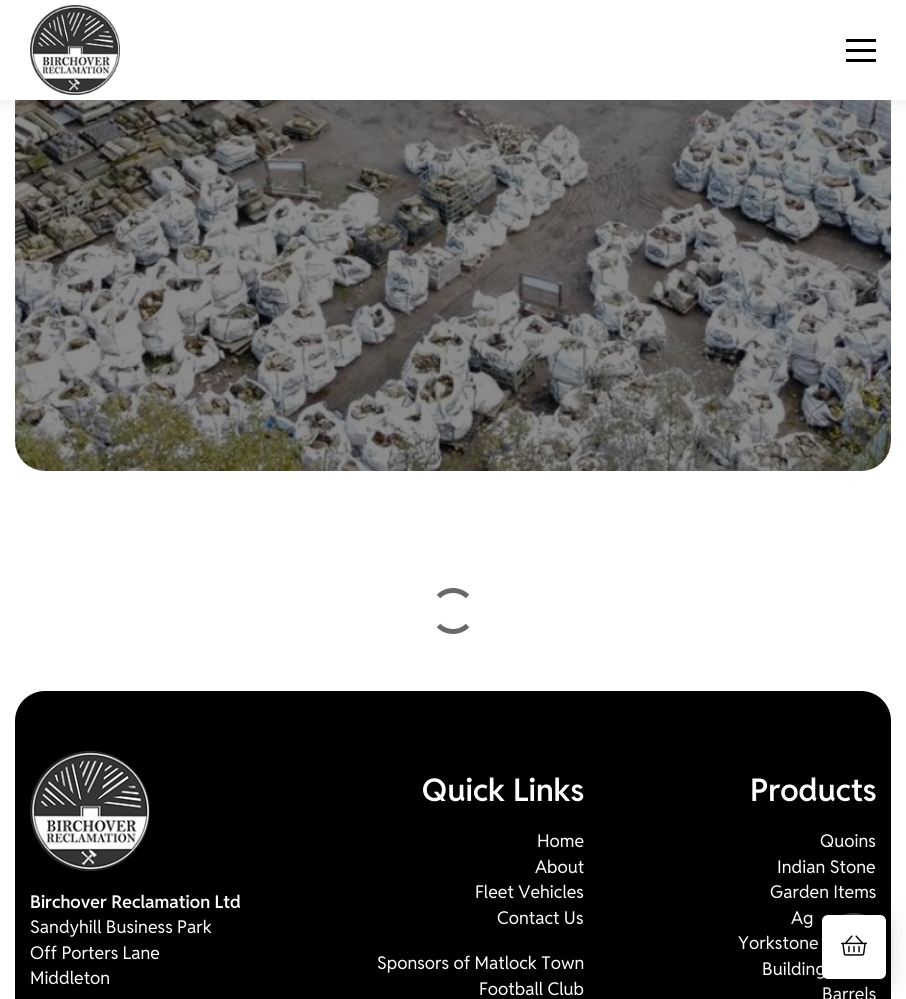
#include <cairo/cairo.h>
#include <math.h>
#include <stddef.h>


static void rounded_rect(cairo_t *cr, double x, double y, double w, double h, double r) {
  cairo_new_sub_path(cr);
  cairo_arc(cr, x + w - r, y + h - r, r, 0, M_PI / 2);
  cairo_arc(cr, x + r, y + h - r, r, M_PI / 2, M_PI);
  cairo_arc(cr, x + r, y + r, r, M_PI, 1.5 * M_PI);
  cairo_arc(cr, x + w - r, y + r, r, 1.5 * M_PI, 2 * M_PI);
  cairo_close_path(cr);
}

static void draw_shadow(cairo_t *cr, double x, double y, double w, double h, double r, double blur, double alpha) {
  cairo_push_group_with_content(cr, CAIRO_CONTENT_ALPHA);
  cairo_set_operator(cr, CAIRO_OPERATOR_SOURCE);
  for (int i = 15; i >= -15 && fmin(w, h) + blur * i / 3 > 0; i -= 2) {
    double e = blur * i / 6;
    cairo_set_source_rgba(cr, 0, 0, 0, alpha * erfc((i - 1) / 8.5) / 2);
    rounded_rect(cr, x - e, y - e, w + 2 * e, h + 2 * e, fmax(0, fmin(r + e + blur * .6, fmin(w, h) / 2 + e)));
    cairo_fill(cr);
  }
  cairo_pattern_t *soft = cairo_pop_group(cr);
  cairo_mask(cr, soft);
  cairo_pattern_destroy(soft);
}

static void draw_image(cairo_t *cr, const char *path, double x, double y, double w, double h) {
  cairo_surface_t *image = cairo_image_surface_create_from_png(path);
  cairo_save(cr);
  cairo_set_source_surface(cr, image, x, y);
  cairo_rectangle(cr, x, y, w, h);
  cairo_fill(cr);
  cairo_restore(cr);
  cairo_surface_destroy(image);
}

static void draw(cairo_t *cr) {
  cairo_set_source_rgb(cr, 1, 1, 1);
  cairo_paint(cr);
  draw_image(cr, "images/2.png", 15, 100, 876, 371);
  cairo_set_source_rgb(cr, 0, 0, 0);
  draw_shadow(cr, 0, 0, 906, 100, 0, 10, 0.1);
  cairo_set_source_rgb(cr, 1, 1, 1);
  cairo_rectangle(cr, 0, 0, 906, 100);
  cairo_fill(cr);
  draw_image(cr, "images/1.png", 30, 5, 90, 90);
  cairo_set_source_rgb(cr, 0, 0, 0);
  cairo_rectangle(cr, 846, 39, 30, 3);
  cairo_fill(cr);
  cairo_rectangle(cr, 846, 49, 30, 3);
  cairo_fill(cr);
  cairo_rectangle(cr, 846, 59, 30, 3);
  cairo_fill(cr);
  cairo_new_path(cr);
  cairo_move_to(cr, 438.5, 596.5);
  cairo_curve_to(cr, 446.5, 588.5, 459.5, 588.5, 467.5, 596.5);
  cairo_move_to(cr, 467.5, 625.5);
  cairo_curve_to(cr, 459.5, 633.5, 446.5, 633.5, 438.5, 625.5);
  cairo_set_source_rgb(cr, 105 / 255.0, 105 / 255.0, 105 / 255.0);
  cairo_set_line_width(cr, 5);
  cairo_stroke(cr);
  cairo_set_source_rgb(cr, 0, 0, 0);
  rounded_rect(cr, 15, 691, 876, 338, 30);
  cairo_fill(cr);
  draw_image(cr, "images/3.png", 30, 751, 120, 120);
  cairo_set_source_rgb(cr, 0, 0, 0);
  draw_shadow(cr, 822, 916, 64, 66, 32, 6, 0.15);
  cairo_select_font_face(cr, "Reddit Sans SemiBold", CAIRO_FONT_SLANT_NORMAL, CAIRO_FONT_WEIGHT_NORMAL);
  cairo_set_font_size(cr, 17.6);
  cairo_set_source_rgb(cr, 1, 1, 1);
  cairo_move_to(cr, 30, 908);
  cairo_show_text(cr, "Birchover Reclamation Ltd");
  cairo_select_font_face(cr, "Reddit Sans", CAIRO_FONT_SLANT_NORMAL, CAIRO_FONT_WEIGHT_NORMAL);
  cairo_move_to(cr, 30, 933);
  cairo_show_text(cr, "Sandyhill Business Park");
  cairo_move_to(cr, 30, 959);
  cairo_show_text(cr, "Off Porters Lane");
  cairo_move_to(cr, 30, 984);
  cairo_show_text(cr, "Middleton");
  cairo_select_font_face(cr, "Reddit Sans SemiBold", CAIRO_FONT_SLANT_NORMAL, CAIRO_FONT_WEIGHT_NORMAL);
  cairo_set_font_size(cr, 31.25);
  cairo_move_to(cr, 422, 801);
  cairo_show_text(cr, "Quick Links");
  cairo_select_font_face(cr, "Reddit Sans", CAIRO_FONT_SLANT_NORMAL, CAIRO_FONT_WEIGHT_NORMAL);
  cairo_set_font_size(cr, 17.6);
  cairo_move_to(cr, 537, 847);
  cairo_show_text(cr, "Home");
  cairo_move_to(cr, 535, 873);
  cairo_show_text(cr, "About");
  cairo_move_to(cr, 475, 898);
  cairo_show_text(cr, "Fleet Vehicles");
  cairo_move_to(cr, 497, 924);
  cairo_show_text(cr, "Contact Us");
  cairo_move_to(cr, 377, 969);
  cairo_show_text(cr, "Sponsors of Matlock Town");
  cairo_move_to(cr, 479, 995);
  cairo_show_text(cr, "Football Club");
  cairo_select_font_face(cr, "Reddit Sans SemiBold", CAIRO_FONT_SLANT_NORMAL, CAIRO_FONT_WEIGHT_NORMAL);
  cairo_set_font_size(cr, 31.25);
  cairo_move_to(cr, 750, 801);
  cairo_show_text(cr, "Products");
  cairo_select_font_face(cr, "Reddit Sans", CAIRO_FONT_SLANT_NORMAL, CAIRO_FONT_WEIGHT_NORMAL);
  cairo_set_font_size(cr, 17.6);
  cairo_move_to(cr, 820, 847);
  cairo_show_text(cr, "Quoins");
  cairo_move_to(cr, 777, 873);
  cairo_show_text(cr, "Indian Stone");
  cairo_move_to(cr, 770, 898);
  cairo_show_text(cr, "Garden Items");
  cairo_move_to(cr, 791, 924);
  cairo_show_text(cr, "Ag");
  cairo_move_to(cr, 738, 949);
  cairo_show_text(cr, "Yorkstone");
  cairo_move_to(cr, 762, 975);
  cairo_show_text(cr, "Building");
  cairo_move_to(cr, 822, 1000);
  cairo_show_text(cr, "Barrels");
  cairo_set_source_rgb(cr, 64 / 255.0, 64 / 255.0, 64 / 255.0);
  rounded_rect(cr, 822, 913, 64, 66, 32);
  cairo_fill(cr);
  cairo_set_source_rgb(cr, 0, 0, 0);
  draw_shadow(cr, 822, 919, 64, 64, 6, 15, 0.17);
  cairo_set_source_rgb(cr, 1, 1, 1);
  rounded_rect(cr, 822, 915, 64, 64, 6);
  cairo_fill(cr);
  draw_image(cr, "images/4.png", 841, 935, 26, 21);
}

int main(void) {
  cairo_surface_t *surface = cairo_image_surface_create(CAIRO_FORMAT_RGB24, 906, 999);
  cairo_t *cr = cairo_create(surface);
  cairo_font_options_t *options = cairo_font_options_create();
  cairo_font_options_set_hint_metrics(options, CAIRO_HINT_METRICS_OFF);
  cairo_font_options_set_hint_style(options, CAIRO_HINT_STYLE_NONE);
  cairo_set_font_options(cr, options);
  cairo_set_miter_limit(cr, 4);
  draw(cr);
  cairo_surface_write_to_png(surface, "out.png");
  cairo_font_options_destroy(options);
  cairo_destroy(cr);
  cairo_surface_destroy(surface);
  return 0;
}
